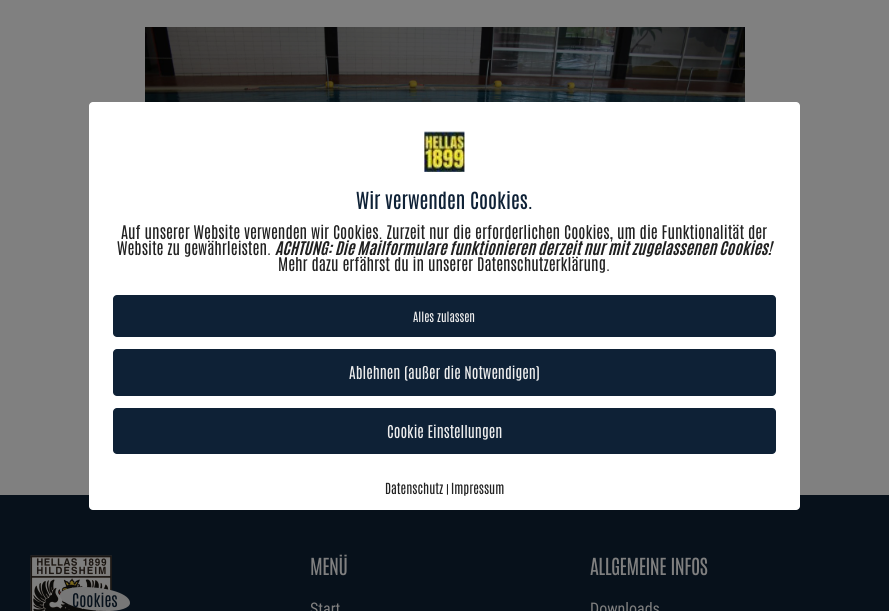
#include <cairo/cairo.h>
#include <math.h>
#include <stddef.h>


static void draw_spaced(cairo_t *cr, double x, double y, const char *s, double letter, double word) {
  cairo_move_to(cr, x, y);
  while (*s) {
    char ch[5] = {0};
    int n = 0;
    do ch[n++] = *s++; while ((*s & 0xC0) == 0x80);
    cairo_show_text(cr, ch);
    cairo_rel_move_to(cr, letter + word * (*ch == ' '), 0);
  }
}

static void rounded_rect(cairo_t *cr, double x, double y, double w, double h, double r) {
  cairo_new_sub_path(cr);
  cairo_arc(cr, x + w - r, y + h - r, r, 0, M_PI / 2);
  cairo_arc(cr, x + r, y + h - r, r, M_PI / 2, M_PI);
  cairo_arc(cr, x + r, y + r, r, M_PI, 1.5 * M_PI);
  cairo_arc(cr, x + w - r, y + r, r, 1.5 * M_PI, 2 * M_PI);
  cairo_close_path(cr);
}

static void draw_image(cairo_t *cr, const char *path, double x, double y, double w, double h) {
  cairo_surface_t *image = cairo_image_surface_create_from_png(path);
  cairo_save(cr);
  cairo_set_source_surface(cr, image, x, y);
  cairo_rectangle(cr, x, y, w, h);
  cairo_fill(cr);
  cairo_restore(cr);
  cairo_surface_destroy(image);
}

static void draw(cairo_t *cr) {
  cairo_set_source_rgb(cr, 128 / 255.0, 128 / 255.0, 128 / 255.0);
  cairo_paint(cr);
  draw_image(cr, "images/1.png", 145, 27, 600, 75);
  cairo_set_source_rgb(cr, 7 / 255.0, 17 / 255.0, 27 / 255.0);
  cairo_rectangle(cr, 0, 495, 889, 116);
  cairo_fill(cr);
  cairo_set_source_rgb(cr, 1, 1, 1);
  rounded_rect(cr, 89, 102, 711, 408, 4);
  cairo_fill(cr);
  draw_image(cr, "images/2.png", 424, 131, 41, 41);
  cairo_set_source_rgb(cr, 14 / 255.0, 33 / 255.0, 54 / 255.0);
  rounded_rect(cr, 113, 295, 663, 42, 4);
  cairo_fill(cr);
  rounded_rect(cr, 113, 349, 663, 47, 4);
  cairo_fill(cr);
  rounded_rect(cr, 113, 408, 663, 46, 4);
  cairo_fill(cr);
  draw_image(cr, "images/3.png", 30, 555, 82, 56);
  cairo_set_source_rgb(cr, 119 / 255.0, 119 / 255.0, 119 / 255.0);
  cairo_new_path(cr);
  cairo_move_to(cr, 82, 587);
  cairo_curve_to(cr, 109, 587, 130, 594, 130, 603);
  cairo_curve_to(cr, 130, 608, 120, 611, 108, 611);
  cairo_curve_to(cr, 81, 611, 60, 604, 60, 595);
  cairo_curve_to(cr, 60, 590, 70, 587, 82, 587);
  cairo_close_path(cr);
  cairo_fill(cr);
  cairo_select_font_face(cr, "Antonio Medium", CAIRO_FONT_SLANT_NORMAL, CAIRO_FONT_WEIGHT_NORMAL);
  cairo_set_font_size(cr, 20);
  cairo_set_source_rgb(cr, 14 / 255.0, 33 / 255.0, 54 / 255.0);
  cairo_move_to(cr, 356, 209);
  cairo_show_text(cr, "Wir verwenden Cookies.");
  cairo_select_font_face(cr, "Antonio", CAIRO_FONT_SLANT_NORMAL, CAIRO_FONT_WEIGHT_NORMAL);
  cairo_set_font_size(cr, 16);
  cairo_set_source_rgb(cr, 33 / 255.0, 33 / 255.0, 33 / 255.0);
  cairo_move_to(cr, 121, 239);
  cairo_show_text(cr, "Auf unserer Website verwenden wir Cookies. Zurzeit nur die erforderlichen Cookies, um die Funktionalität der");
  cairo_move_to(cr, 117, 255);
  cairo_show_text(cr, "Website zu gewährleisten.");
  cairo_select_font_face(cr, "Antonio", CAIRO_FONT_SLANT_ITALIC, CAIRO_FONT_WEIGHT_BOLD);
  cairo_move_to(cr, 275, 255);
  cairo_show_text(cr, "ACHTUNG: Die Mailformulare funktionieren derzeit nur mit zugelassenen Cookies!");
  cairo_select_font_face(cr, "Antonio", CAIRO_FONT_SLANT_NORMAL, CAIRO_FONT_WEIGHT_NORMAL);
  cairo_move_to(cr, 278, 271);
  cairo_show_text(cr, "Mehr dazu erfährst du in unserer Datenschutzerklärung.");
  cairo_set_font_size(cr, 12);
  cairo_set_source_rgb(cr, 238 / 255.0, 238 / 255.0, 238 / 255.0);
  cairo_move_to(cr, 413, 322);
  cairo_show_text(cr, "Alles zulassen");
  cairo_set_font_size(cr, 15);
  cairo_move_to(cr, 349, 379);
  cairo_show_text(cr, "Ablehnen (außer die Notwendigen)");
  cairo_move_to(cr, 387, 438);
  cairo_show_text(cr, "Cookie Einstellungen");
  cairo_set_font_size(cr, 13);
  cairo_set_source_rgb(cr, 33 / 255.0, 33 / 255.0, 33 / 255.0);
  cairo_move_to(cr, 385, 494);
  cairo_show_text(cr, "Datenschutz");
  cairo_set_font_size(cr, 11);
  cairo_move_to(cr, 446, 494);
  cairo_show_text(cr, "|");
  cairo_set_font_size(cr, 13);
  cairo_move_to(cr, 451, 494);
  cairo_show_text(cr, "Impressum");
  cairo_set_font_size(cr, 16);
  cairo_set_source_rgb(cr, 7 / 255.0, 17 / 255.0, 27 / 255.0);
  cairo_move_to(cr, 72, 607);
  cairo_show_text(cr, "Cookies");
  cairo_set_font_size(cr, 20);
  cairo_set_source_rgb(cr, 128 / 255.0, 128 / 255.0, 128 / 255.0);
  draw_spaced(cr, 310, 575, "MENÜ", -0.5, 0);
  cairo_select_font_face(cr, "Roboto Condensed", CAIRO_FONT_SLANT_NORMAL, CAIRO_FONT_WEIGHT_NORMAL);
  cairo_set_font_size(cr, 16);
  cairo_move_to(cr, 310, 614);
  cairo_show_text(cr, "Start");
  cairo_select_font_face(cr, "Antonio", CAIRO_FONT_SLANT_NORMAL, CAIRO_FONT_WEIGHT_NORMAL);
  cairo_set_font_size(cr, 20);
  draw_spaced(cr, 590, 575, "ALLGEMEINE INFOS", -0.5, 0);
  cairo_select_font_face(cr, "Roboto Condensed", CAIRO_FONT_SLANT_NORMAL, CAIRO_FONT_WEIGHT_NORMAL);
  cairo_set_font_size(cr, 16);
  cairo_move_to(cr, 590, 614);
  cairo_show_text(cr, "Downloads");
}

int main(void) {
  cairo_surface_t *surface = cairo_image_surface_create(CAIRO_FORMAT_RGB24, 889, 611);
  cairo_t *cr = cairo_create(surface);
  cairo_font_options_t *options = cairo_font_options_create();
  cairo_font_options_set_hint_metrics(options, CAIRO_HINT_METRICS_OFF);
  cairo_font_options_set_hint_style(options, CAIRO_HINT_STYLE_NONE);
  cairo_set_font_options(cr, options);
  cairo_set_miter_limit(cr, 4);
  draw(cr);
  cairo_surface_write_to_png(surface, "out.png");
  cairo_font_options_destroy(options);
  cairo_destroy(cr);
  cairo_surface_destroy(surface);
  return 0;
}
